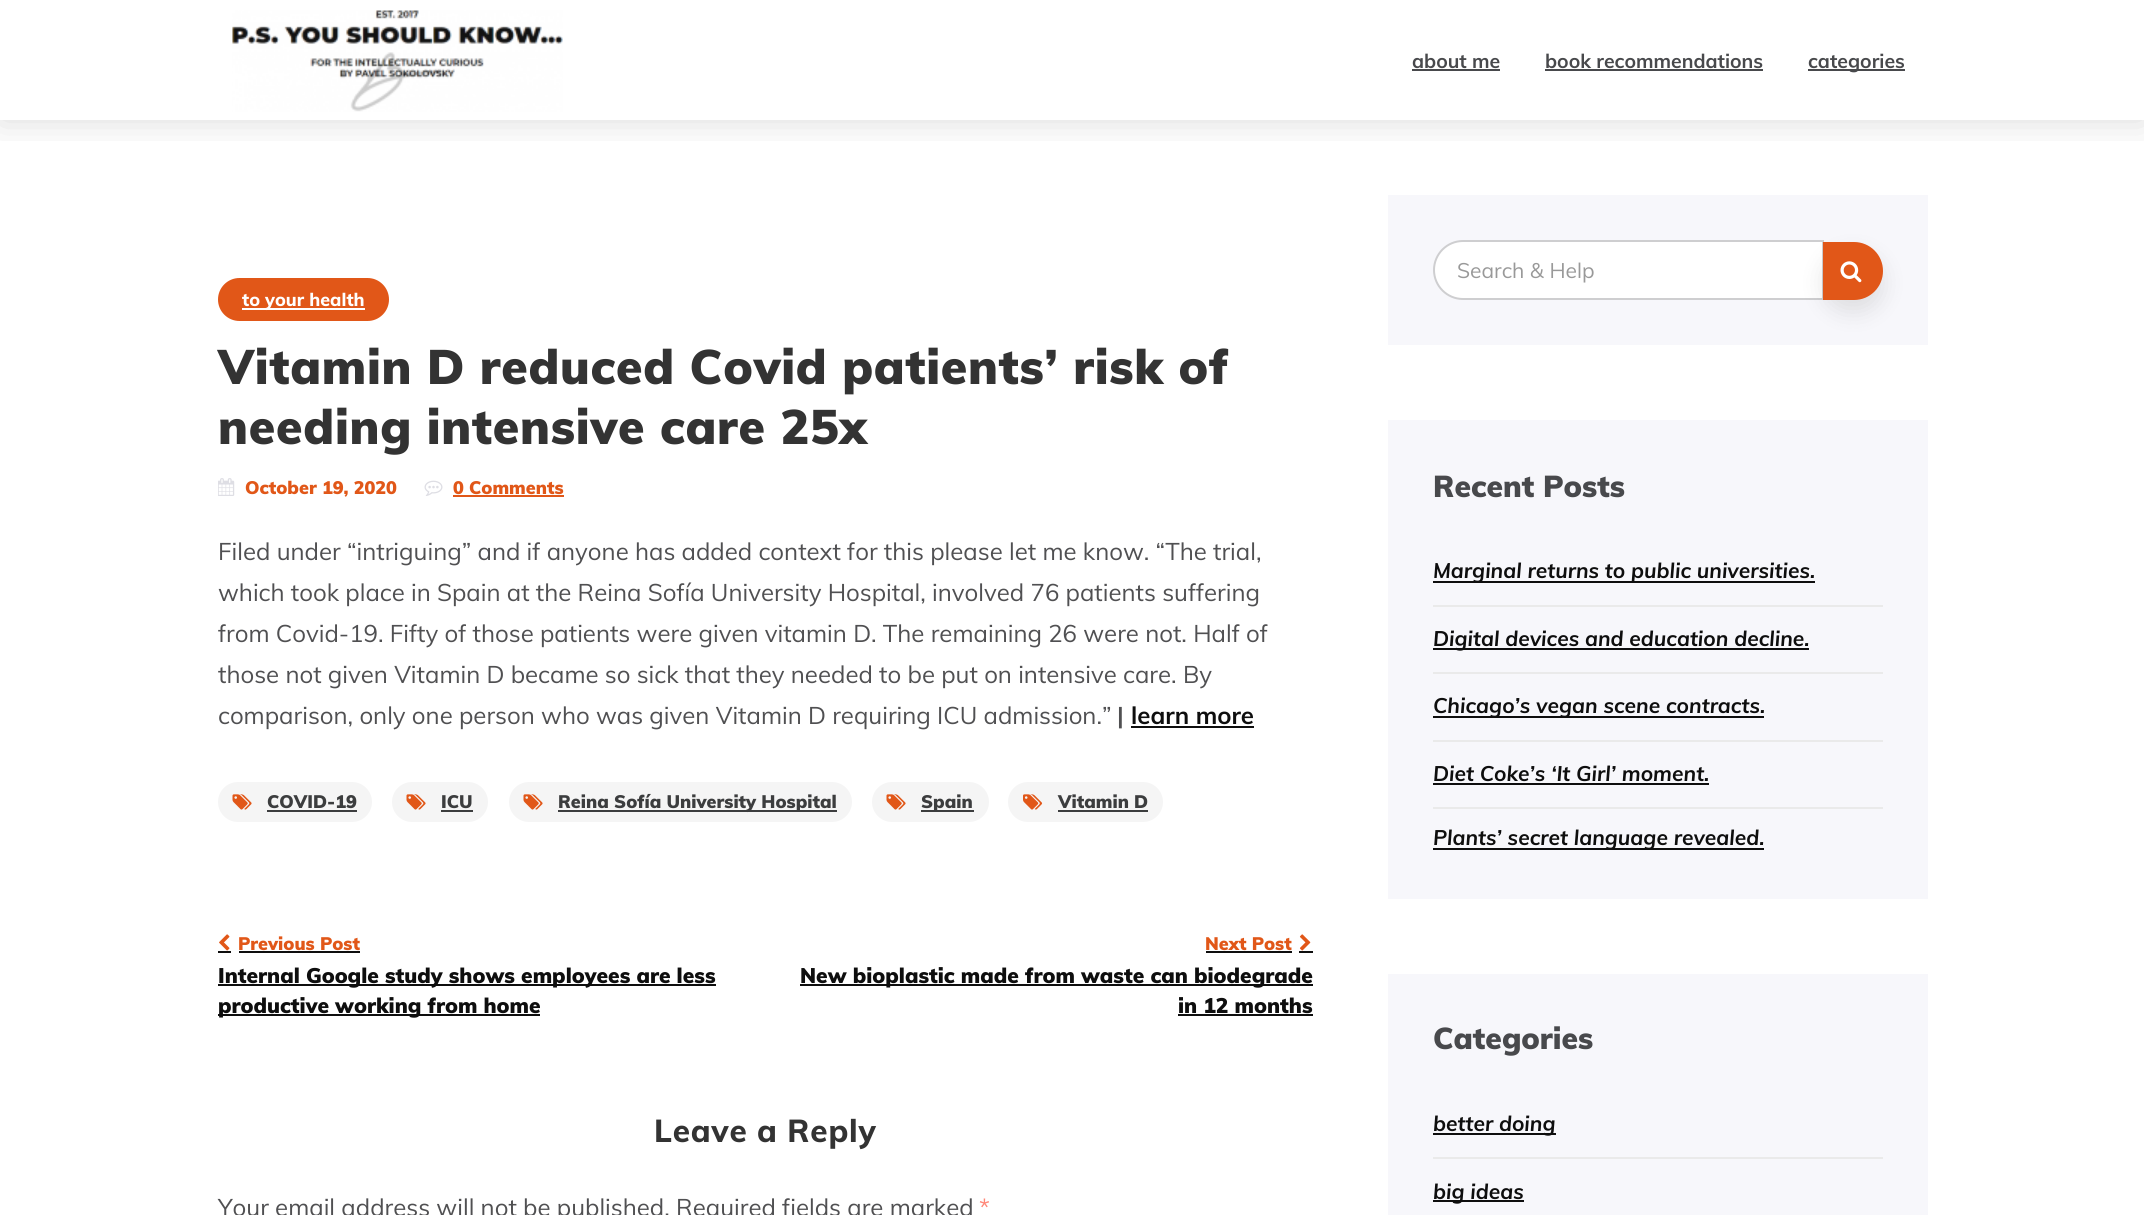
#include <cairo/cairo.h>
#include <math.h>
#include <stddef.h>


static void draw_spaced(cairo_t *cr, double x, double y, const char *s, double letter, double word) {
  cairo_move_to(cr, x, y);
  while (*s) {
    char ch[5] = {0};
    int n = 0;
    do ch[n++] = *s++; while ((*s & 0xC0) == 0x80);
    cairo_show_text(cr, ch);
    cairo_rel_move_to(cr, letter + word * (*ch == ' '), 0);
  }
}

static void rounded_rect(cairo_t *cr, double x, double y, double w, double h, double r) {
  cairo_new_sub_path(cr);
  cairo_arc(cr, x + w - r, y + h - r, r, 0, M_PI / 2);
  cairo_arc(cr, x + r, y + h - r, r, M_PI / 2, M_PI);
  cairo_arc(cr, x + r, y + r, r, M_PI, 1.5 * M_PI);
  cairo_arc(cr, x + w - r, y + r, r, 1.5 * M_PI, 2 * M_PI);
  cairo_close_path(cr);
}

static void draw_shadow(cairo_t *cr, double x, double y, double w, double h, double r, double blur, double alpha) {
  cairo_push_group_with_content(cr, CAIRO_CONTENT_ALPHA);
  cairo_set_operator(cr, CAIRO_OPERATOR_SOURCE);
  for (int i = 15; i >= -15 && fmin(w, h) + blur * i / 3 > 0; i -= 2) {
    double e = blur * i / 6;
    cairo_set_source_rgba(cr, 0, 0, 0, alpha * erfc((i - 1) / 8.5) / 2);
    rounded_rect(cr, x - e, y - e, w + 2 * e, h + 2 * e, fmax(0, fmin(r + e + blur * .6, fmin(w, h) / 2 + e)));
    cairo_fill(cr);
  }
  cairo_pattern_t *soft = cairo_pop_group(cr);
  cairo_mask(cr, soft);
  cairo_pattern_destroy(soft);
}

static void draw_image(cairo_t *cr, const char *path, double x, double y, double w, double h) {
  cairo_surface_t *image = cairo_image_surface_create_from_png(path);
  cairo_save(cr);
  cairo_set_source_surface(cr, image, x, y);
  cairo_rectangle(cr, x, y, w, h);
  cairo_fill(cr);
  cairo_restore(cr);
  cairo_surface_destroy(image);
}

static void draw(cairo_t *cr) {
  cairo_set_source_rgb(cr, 1, 1, 1);
  cairo_paint(cr);
  cairo_save(cr);
  cairo_rectangle(cr, 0, 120, 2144, 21);
  cairo_clip(cr);
  cairo_set_source_rgb(cr, 0, 0, 0);
  draw_shadow(cr, 0, 0, 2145, 120, 0, 19, 0.15);
  cairo_restore(cr);
  draw_image(cr, "images/1.png", 232, 10, 331, 102);
  cairo_set_source_rgb(cr, 72 / 255.0, 73 / 255.0, 76 / 255.0);
  cairo_rectangle(cr, 1412, 69, 88, 2);
  cairo_fill(cr);
  cairo_rectangle(cr, 1545, 69, 218, 2);
  cairo_fill(cr);
  cairo_rectangle(cr, 1808, 69, 97, 2);
  cairo_fill(cr);
  cairo_set_source_rgb(cr, 225 / 255.0, 87 / 255.0, 24 / 255.0);
  rounded_rect(cr, 219, 279, 169, 41, 20.5);
  cairo_fill_preserve(cr);
  cairo_stroke(cr);
  cairo_set_source_rgb(cr, 1, 1, 1);
  cairo_rectangle(cr, 242, 308, 123, 2);
  cairo_fill(cr);
  draw_image(cr, "images/2.png", 218, 478, 17, 18);
  draw_image(cr, "images/3.png", 424, 480, 19, 16);
  cairo_set_source_rgb(cr, 225 / 255.0, 87 / 255.0, 24 / 255.0);
  cairo_rectangle(cr, 453, 495, 111, 2);
  cairo_fill(cr);
  cairo_set_source_rgb(cr, 14 / 255.0, 14 / 255.0, 14 / 255.0);
  cairo_rectangle(cr, 1131, 726, 123, 2);
  cairo_fill(cr);
  cairo_set_source_rgb(cr, 245 / 255.0, 245 / 255.0, 245 / 255.0);
  rounded_rect(cr, 218, 782, 154, 40, 20);
  cairo_fill(cr);
  draw_image(cr, "images/4.png", 232, 794, 20, 16);
  cairo_set_source_rgb(cr, 60 / 255.0, 61 / 255.0, 62 / 255.0);
  cairo_rectangle(cr, 267, 810, 90, 2);
  cairo_fill(cr);
  cairo_set_source_rgb(cr, 245 / 255.0, 245 / 255.0, 245 / 255.0);
  rounded_rect(cr, 392, 782, 96, 40, 20);
  cairo_fill(cr);
  draw_image(cr, "images/4.png", 406, 794, 20, 16);
  cairo_set_source_rgb(cr, 60 / 255.0, 61 / 255.0, 62 / 255.0);
  cairo_rectangle(cr, 441, 810, 32, 2);
  cairo_fill(cr);
  cairo_set_source_rgb(cr, 245 / 255.0, 245 / 255.0, 245 / 255.0);
  rounded_rect(cr, 509, 782, 343, 40, 20);
  cairo_fill(cr);
  draw_image(cr, "images/4.png", 523, 794, 20, 16);
  cairo_set_source_rgb(cr, 60 / 255.0, 61 / 255.0, 62 / 255.0);
  cairo_rectangle(cr, 558, 810, 279, 2);
  cairo_fill(cr);
  cairo_set_source_rgb(cr, 245 / 255.0, 245 / 255.0, 245 / 255.0);
  rounded_rect(cr, 872, 782, 117, 40, 20);
  cairo_fill(cr);
  draw_image(cr, "images/4.png", 886, 794, 20, 16);
  cairo_set_source_rgb(cr, 60 / 255.0, 61 / 255.0, 62 / 255.0);
  cairo_rectangle(cr, 921, 810, 53, 2);
  cairo_fill(cr);
  cairo_set_source_rgb(cr, 245 / 255.0, 245 / 255.0, 245 / 255.0);
  rounded_rect(cr, 1008, 782, 155, 40, 20);
  cairo_fill(cr);
  draw_image(cr, "images/5.png", 1023, 794, 20, 16);
  cairo_set_source_rgb(cr, 60 / 255.0, 61 / 255.0, 62 / 255.0);
  cairo_rectangle(cr, 1058, 810, 90, 2);
  cairo_fill(cr);
  draw_image(cr, "images/6.png", 219, 934, 11, 17);
  cairo_set_source_rgb(cr, 14 / 255.0, 14 / 255.0, 14 / 255.0);
  cairo_rectangle(cr, 239, 951, 121, 2);
  cairo_fill(cr);
  cairo_rectangle(cr, 218, 951, 13, 2);
  cairo_fill(cr);
  cairo_rectangle(cr, 218, 984, 498, 2);
  cairo_fill(cr);
  cairo_rectangle(cr, 218, 1014, 322, 2);
  cairo_fill(cr);
  cairo_rectangle(cr, 1206, 951, 86, 2);
  cairo_fill(cr);
  draw_image(cr, "images/7.png", 1299, 934, 12, 17);
  cairo_rectangle(cr, 1299, 951, 14, 2);
  cairo_fill(cr);
  cairo_rectangle(cr, 800, 984, 513, 2);
  cairo_fill(cr);
  cairo_rectangle(cr, 1178, 1014, 135, 2);
  cairo_fill(cr);
  cairo_set_source_rgb(cr, 247 / 255.0, 247 / 255.0, 251 / 255.0);
  cairo_rectangle(cr, 1388, 195, 540, 150);
  cairo_fill(cr);
  cairo_set_source_rgb(cr, 1, 1, 1);
  cairo_new_path(cr);
  cairo_move_to(cr, 1463, 241);
  cairo_line_to(cr, 1823, 241);
  cairo_line_to(cr, 1823, 299);
  cairo_line_to(cr, 1463, 299);
  cairo_curve_to(cr, 1447, 299, 1434, 286, 1434, 270);
  cairo_curve_to(cr, 1434, 254, 1447, 241, 1463, 241);
  cairo_close_path(cr);
  cairo_fill_preserve(cr);
  cairo_set_source_rgb(cr, 206 / 255.0, 206 / 255.0, 208 / 255.0);
  cairo_stroke(cr);
  cairo_set_source_rgb(cr, 0, 0, 0);
  draw_shadow(cr, 1823, 254, 60, 58, 29, 11, 0.1);
  cairo_set_source_rgb(cr, 225 / 255.0, 87 / 255.0, 24 / 255.0);
  cairo_new_path(cr);
  cairo_move_to(cr, 1824, 243);
  cairo_line_to(cr, 1854, 243);
  cairo_curve_to(cr, 1869.5, 243, 1882, 255.5, 1882, 271);
  cairo_curve_to(cr, 1882, 286.5, 1869.5, 299, 1854, 299);
  cairo_line_to(cr, 1824, 299);
  cairo_close_path(cr);
  cairo_fill_preserve(cr);
  cairo_stroke(cr);
  draw_image(cr, "images/8.png", 1840, 261, 22, 22);
  cairo_set_source_rgb(cr, 247 / 255.0, 247 / 255.0, 251 / 255.0);
  cairo_rectangle(cr, 1388, 420, 540, 479);
  cairo_fill(cr);
  cairo_set_source_rgb(cr, 234 / 255.0, 234 / 255.0, 234 / 255.0);
  cairo_rectangle(cr, 1433, 605, 450, 2);
  cairo_fill(cr);
  cairo_set_source_rgb(cr, 14 / 255.0, 14 / 255.0, 14 / 255.0);
  cairo_rectangle(cr, 1433, 581, 382, 2);
  cairo_fill(cr);
  cairo_set_source_rgb(cr, 234 / 255.0, 234 / 255.0, 234 / 255.0);
  cairo_rectangle(cr, 1433, 672, 450, 2);
  cairo_fill(cr);
  cairo_set_source_rgb(cr, 14 / 255.0, 14 / 255.0, 14 / 255.0);
  cairo_rectangle(cr, 1433, 648, 376, 2);
  cairo_fill(cr);
  cairo_set_source_rgb(cr, 234 / 255.0, 234 / 255.0, 234 / 255.0);
  cairo_rectangle(cr, 1433, 740, 450, 2);
  cairo_fill(cr);
  cairo_set_source_rgb(cr, 14 / 255.0, 14 / 255.0, 14 / 255.0);
  cairo_rectangle(cr, 1433, 716, 331, 2);
  cairo_fill(cr);
  cairo_set_source_rgb(cr, 234 / 255.0, 234 / 255.0, 234 / 255.0);
  cairo_rectangle(cr, 1433, 807, 450, 2);
  cairo_fill(cr);
  cairo_set_source_rgb(cr, 14 / 255.0, 14 / 255.0, 14 / 255.0);
  cairo_rectangle(cr, 1433, 783, 276, 2);
  cairo_fill(cr);
  cairo_rectangle(cr, 1433, 848, 331, 2);
  cairo_fill(cr);
  cairo_set_source_rgb(cr, 247 / 255.0, 247 / 255.0, 251 / 255.0);
  cairo_rectangle(cr, 1388, 974, 540, 241);
  cairo_fill(cr);
  cairo_set_source_rgb(cr, 234 / 255.0, 234 / 255.0, 234 / 255.0);
  cairo_rectangle(cr, 1433, 1157, 450, 2);
  cairo_fill(cr);
  cairo_set_source_rgb(cr, 14 / 255.0, 14 / 255.0, 14 / 255.0);
  cairo_rectangle(cr, 1433, 1133, 123, 2);
  cairo_fill(cr);
  cairo_rectangle(cr, 1433, 1200, 91, 2);
  cairo_fill(cr);
  cairo_select_font_face(cr, "Muli", CAIRO_FONT_SLANT_NORMAL, CAIRO_FONT_WEIGHT_BOLD);
  cairo_set_font_size(cr, 19.5);
  cairo_set_source_rgb(cr, 72 / 255.0, 73 / 255.0, 76 / 255.0);
  cairo_move_to(cr, 1412, 68);
  cairo_show_text(cr, "about me");
  cairo_move_to(cr, 1545, 68);
  cairo_show_text(cr, "book recommendations");
  cairo_move_to(cr, 1808, 68);
  cairo_show_text(cr, "categories");
  cairo_select_font_face(cr, "Muli ExtraBold", CAIRO_FONT_SLANT_NORMAL, CAIRO_FONT_WEIGHT_NORMAL);
  cairo_set_font_size(cr, 18);
  cairo_set_source_rgb(cr, 1, 1, 1);
  cairo_move_to(cr, 242, 306);
  cairo_show_text(cr, "to your health");
  cairo_select_font_face(cr, "Muli Black", CAIRO_FONT_SLANT_NORMAL, CAIRO_FONT_WEIGHT_NORMAL);
  cairo_set_font_size(cr, 48);
  cairo_set_source_rgb(cr, 51 / 255.0, 51 / 255.0, 51 / 255.0);
  draw_spaced(cr, 218, 384, "Vitamin D reduced Covid patients’ risk of", 0.75, 0);
  draw_spaced(cr, 218, 444, "needing intensive care 25x", 0.75, 0);
  cairo_set_font_size(cr, 18);
  cairo_set_source_rgb(cr, 225 / 255.0, 87 / 255.0, 24 / 255.0);
  cairo_move_to(cr, 245, 494);
  cairo_show_text(cr, "October 19, 2020");
  cairo_move_to(cr, 453, 494);
  cairo_show_text(cr, "0 Comments");
  cairo_select_font_face(cr, "Muli", CAIRO_FONT_SLANT_NORMAL, CAIRO_FONT_WEIGHT_NORMAL);
  cairo_set_font_size(cr, 24);
  cairo_set_source_rgb(cr, 80 / 255.0, 80 / 255.0, 82 / 255.0);
  cairo_move_to(cr, 218, 560);
  cairo_show_text(cr, "Filed under “intriguing” and if anyone has added context for this please let me know. “The trial,");
  cairo_move_to(cr, 218, 601);
  cairo_show_text(cr, "which took place in Spain at the Reina Sofía University Hospital, involved 76 patients suffering");
  cairo_move_to(cr, 218, 642);
  cairo_show_text(cr, "from Covid-19. Fifty of those patients were given vitamin D. The remaining 26 were not. Half of");
  cairo_move_to(cr, 218, 683);
  cairo_show_text(cr, "those not given Vitamin D became so sick that they needed to be put on intensive care. By");
  cairo_move_to(cr, 218, 724);
  cairo_show_text(cr, "comparison, only one person who was given Vitamin D requiring ICU admission.”");
  cairo_select_font_face(cr, "Muli", CAIRO_FONT_SLANT_NORMAL, CAIRO_FONT_WEIGHT_BOLD);
  cairo_move_to(cr, 1117, 724);
  cairo_show_text(cr, "|");
  cairo_set_source_rgb(cr, 14 / 255.0, 14 / 255.0, 14 / 255.0);
  cairo_move_to(cr, 1131, 724);
  cairo_show_text(cr, "learn more");
  cairo_select_font_face(cr, "Muli Black", CAIRO_FONT_SLANT_NORMAL, CAIRO_FONT_WEIGHT_NORMAL);
  cairo_set_font_size(cr, 18);
  cairo_set_source_rgb(cr, 60 / 255.0, 61 / 255.0, 62 / 255.0);
  cairo_move_to(cr, 267, 808);
  cairo_show_text(cr, "COVID-19");
  cairo_move_to(cr, 441, 808);
  cairo_show_text(cr, "ICU");
  cairo_move_to(cr, 558, 808);
  cairo_show_text(cr, "Reina Sofía University Hospital");
  cairo_move_to(cr, 921, 808);
  cairo_show_text(cr, "Spain");
  cairo_move_to(cr, 1058, 808);
  cairo_show_text(cr, "Vitamin D");
  cairo_set_source_rgb(cr, 225 / 255.0, 87 / 255.0, 24 / 255.0);
  cairo_move_to(cr, 238, 950);
  cairo_show_text(cr, "Previous Post");
  cairo_set_font_size(cr, 21);
  cairo_set_source_rgb(cr, 14 / 255.0, 14 / 255.0, 14 / 255.0);
  cairo_move_to(cr, 218, 983);
  cairo_show_text(cr, "Internal Google study shows employees are less");
  cairo_move_to(cr, 218, 1013);
  cairo_show_text(cr, "productive working from home");
  cairo_set_font_size(cr, 18);
  cairo_set_source_rgb(cr, 225 / 255.0, 87 / 255.0, 24 / 255.0);
  cairo_move_to(cr, 1205, 950);
  cairo_show_text(cr, "Next Post");
  cairo_set_font_size(cr, 21);
  cairo_set_source_rgb(cr, 14 / 255.0, 14 / 255.0, 14 / 255.0);
  cairo_move_to(cr, 800, 983);
  cairo_show_text(cr, "New bioplastic made from waste can biodegrade");
  cairo_move_to(cr, 1178, 1013);
  cairo_show_text(cr, "in 12 months");
  cairo_select_font_face(cr, "Muli ExtraBold", CAIRO_FONT_SLANT_NORMAL, CAIRO_FONT_WEIGHT_NORMAL);
  cairo_set_font_size(cr, 31.5);
  cairo_set_source_rgb(cr, 51 / 255.0, 51 / 255.0, 51 / 255.0);
  draw_spaced(cr, 654, 1142, "Leave a Reply", 0.75, 0);
  cairo_select_font_face(cr, "Muli", CAIRO_FONT_SLANT_NORMAL, CAIRO_FONT_WEIGHT_NORMAL);
  cairo_set_font_size(cr, 24);
  cairo_set_source_rgb(cr, 80 / 255.0, 80 / 255.0, 82 / 255.0);
  cairo_move_to(cr, 218, 1216);
  cairo_show_text(cr, "Your email address will not be published. Required fields are marked");
  cairo_set_source_rgb(cr, 1, 135 / 255.0, 120 / 255.0);
  cairo_move_to(cr, 979, 1216);
  cairo_show_text(cr, "*");
  cairo_set_font_size(cr, 21);
  cairo_set_source_rgb(cr, 153 / 255.0, 153 / 255.0, 153 / 255.0);
  cairo_move_to(cr, 1457, 278);
  cairo_show_text(cr, "Search & Help");
  cairo_select_font_face(cr, "Muli Black", CAIRO_FONT_SLANT_NORMAL, CAIRO_FONT_WEIGHT_NORMAL);
  cairo_set_font_size(cr, 30);
  cairo_set_source_rgb(cr, 72 / 255.0, 73 / 255.0, 76 / 255.0);
  cairo_move_to(cr, 1433, 497);
  cairo_show_text(cr, "Recent Posts");
  cairo_select_font_face(cr, "Muli", CAIRO_FONT_SLANT_ITALIC, CAIRO_FONT_WEIGHT_BOLD);
  cairo_set_font_size(cr, 21);
  cairo_set_source_rgb(cr, 14 / 255.0, 14 / 255.0, 14 / 255.0);
  cairo_move_to(cr, 1433, 578);
  cairo_show_text(cr, "Marginal returns to public universities.");
  cairo_move_to(cr, 1433, 646);
  cairo_show_text(cr, "Digital devices and education decline.");
  cairo_move_to(cr, 1433, 713);
  cairo_show_text(cr, "Chicago’s vegan scene contracts.");
  cairo_move_to(cr, 1433, 781);
  cairo_show_text(cr, "Diet Coke’s ‘It Girl’ moment.");
  cairo_move_to(cr, 1433, 845);
  cairo_show_text(cr, "Plants’ secret language revealed.");
  cairo_select_font_face(cr, "Muli Black", CAIRO_FONT_SLANT_NORMAL, CAIRO_FONT_WEIGHT_NORMAL);
  cairo_set_font_size(cr, 30);
  cairo_set_source_rgb(cr, 72 / 255.0, 73 / 255.0, 76 / 255.0);
  cairo_move_to(cr, 1433, 1049);
  cairo_show_text(cr, "Categories");
  cairo_select_font_face(cr, "Muli", CAIRO_FONT_SLANT_ITALIC, CAIRO_FONT_WEIGHT_BOLD);
  cairo_set_font_size(cr, 21);
  cairo_set_source_rgb(cr, 14 / 255.0, 14 / 255.0, 14 / 255.0);
  cairo_move_to(cr, 1433, 1131);
  cairo_show_text(cr, "better doing");
  cairo_move_to(cr, 1433, 1199);
  cairo_show_text(cr, "big ideas");
}

int main(void) {
  cairo_surface_t *surface = cairo_image_surface_create(CAIRO_FORMAT_RGB24, 2144, 1215);
  cairo_t *cr = cairo_create(surface);
  cairo_font_options_t *options = cairo_font_options_create();
  cairo_font_options_set_hint_metrics(options, CAIRO_HINT_METRICS_OFF);
  cairo_font_options_set_hint_style(options, CAIRO_HINT_STYLE_NONE);
  cairo_set_font_options(cr, options);
  cairo_set_miter_limit(cr, 4);
  draw(cr);
  cairo_surface_write_to_png(surface, "out.png");
  cairo_font_options_destroy(options);
  cairo_destroy(cr);
  cairo_surface_destroy(surface);
  return 0;
}
